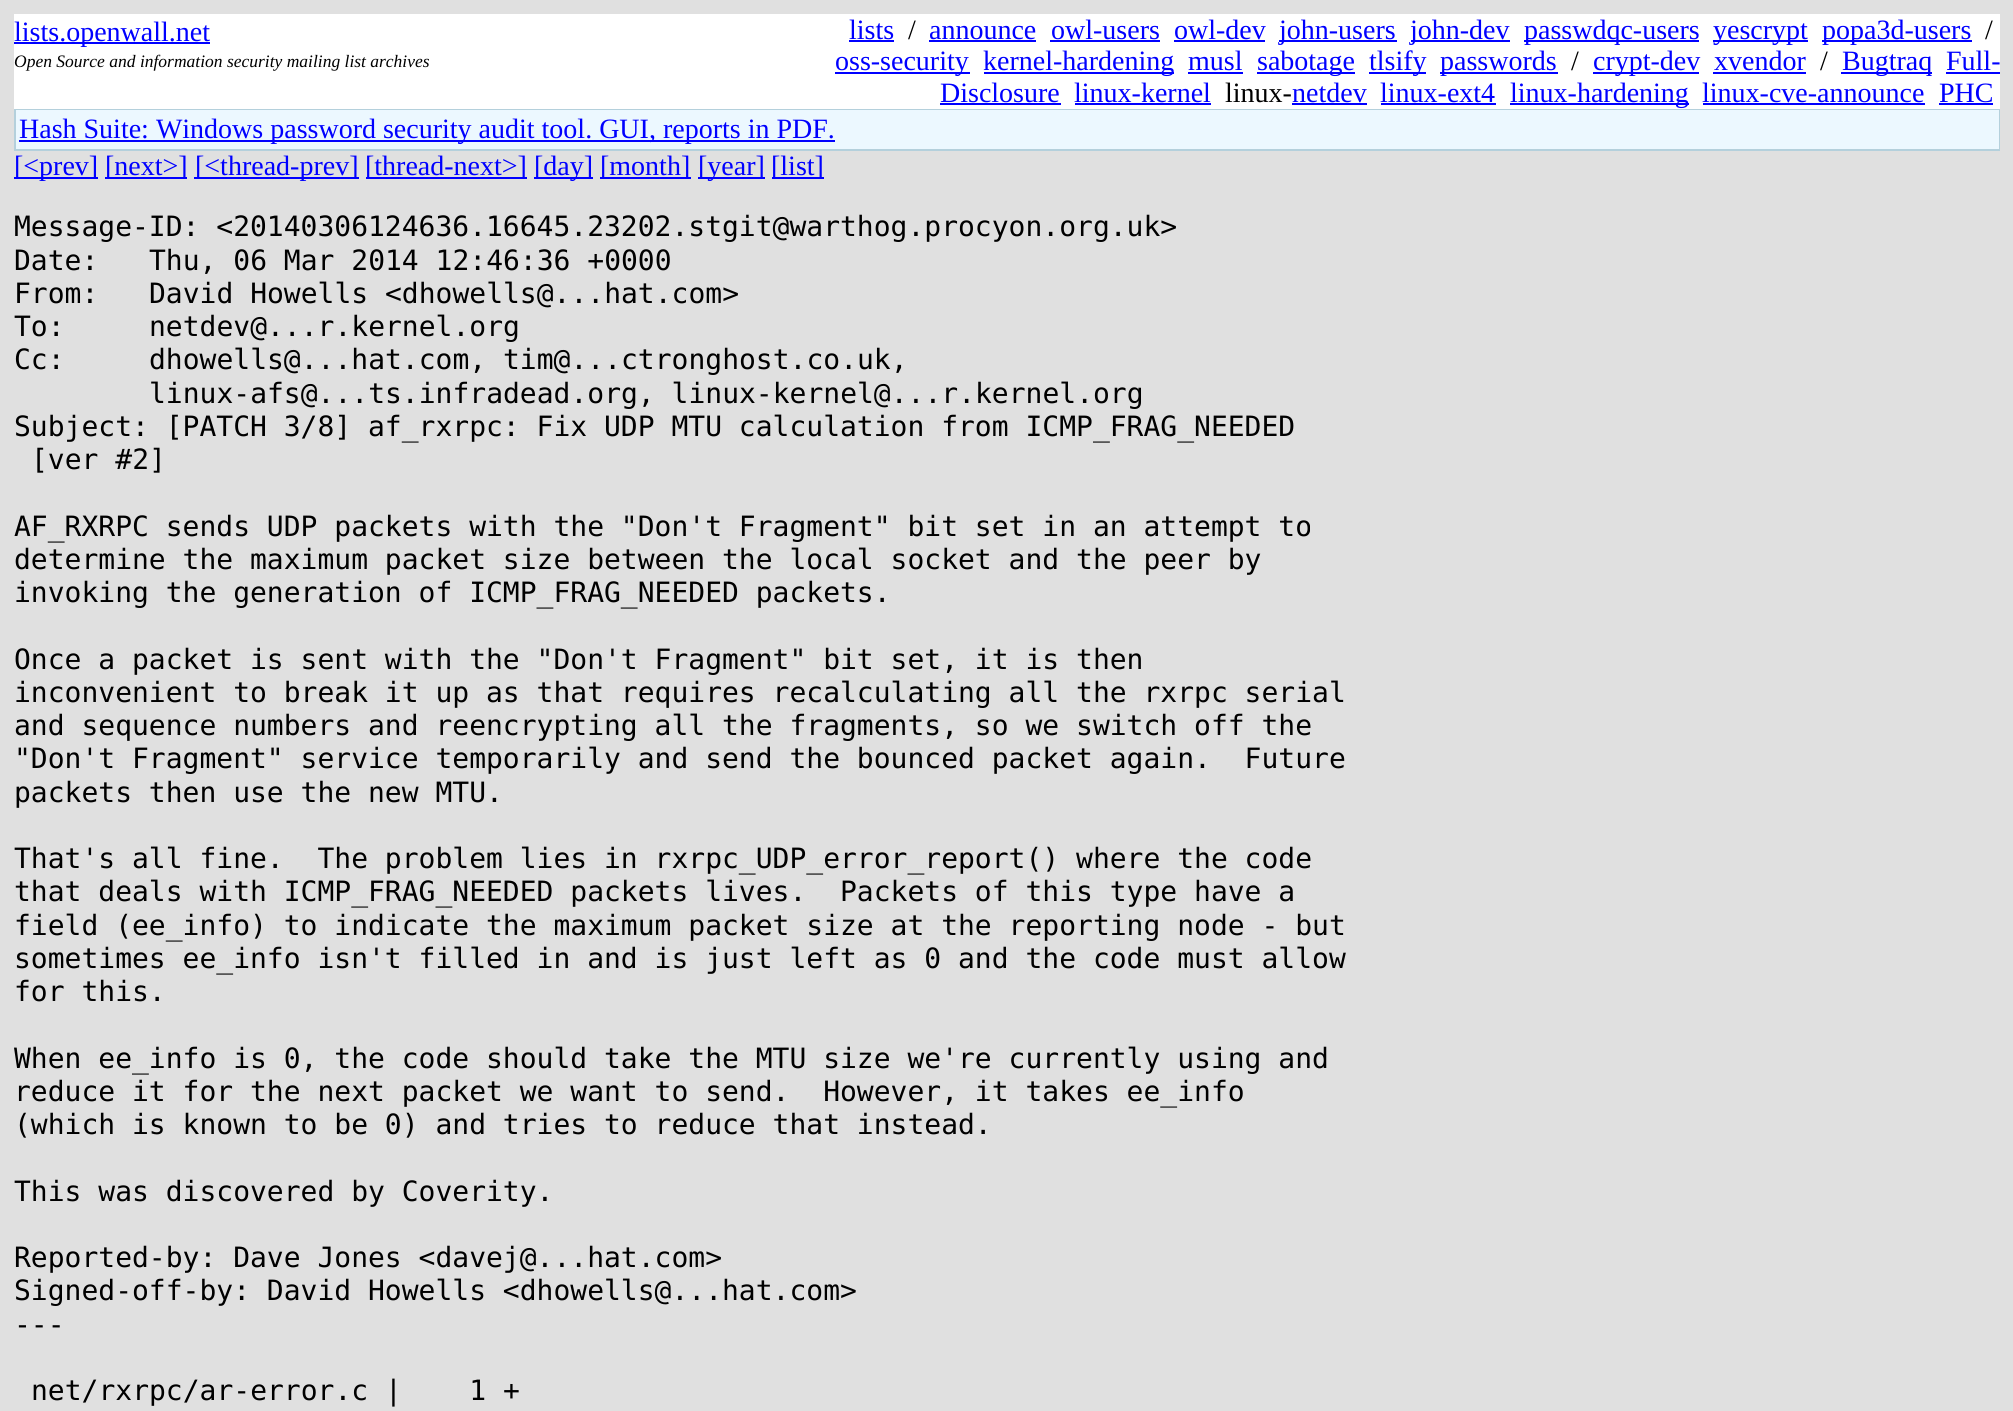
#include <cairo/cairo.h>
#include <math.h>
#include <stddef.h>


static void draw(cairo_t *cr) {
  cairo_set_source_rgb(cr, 224 / 255.0, 224 / 255.0, 224 / 255.0);
  cairo_paint(cr);
  cairo_set_source_rgb(cr, 1, 1, 1);
  cairo_rectangle(cr, 14, 14, 1986, 95);
  cairo_fill(cr);
  cairo_set_source_rgb(cr, 0, 0, 1);
  cairo_rectangle(cr, 14, 42, 196, 2);
  cairo_fill(cr);
  cairo_rectangle(cr, 849, 40, 45, 2);
  cairo_fill(cr);
  cairo_rectangle(cr, 929, 40, 107, 2);
  cairo_fill(cr);
  cairo_rectangle(cr, 1050, 40, 110, 2);
  cairo_fill(cr);
  cairo_rectangle(cr, 1174, 40, 91, 2);
  cairo_fill(cr);
  cairo_rectangle(cr, 1279, 40, 118, 2);
  cairo_fill(cr);
  cairo_rectangle(cr, 1411, 40, 99, 2);
  cairo_fill(cr);
  cairo_rectangle(cr, 1524, 40, 175, 2);
  cairo_fill(cr);
  cairo_rectangle(cr, 1713, 40, 95, 2);
  cairo_fill(cr);
  cairo_rectangle(cr, 1822, 40, 150, 2);
  cairo_fill(cr);
  cairo_rectangle(cr, 835, 72, 135, 2);
  cairo_fill(cr);
  cairo_rectangle(cr, 984, 72, 190, 2);
  cairo_fill(cr);
  cairo_rectangle(cr, 1188, 72, 55, 2);
  cairo_fill(cr);
  cairo_rectangle(cr, 1257, 72, 98, 2);
  cairo_fill(cr);
  cairo_rectangle(cr, 1369, 72, 57, 2);
  cairo_fill(cr);
  cairo_rectangle(cr, 1440, 72, 118, 2);
  cairo_fill(cr);
  cairo_rectangle(cr, 1593, 72, 106, 2);
  cairo_fill(cr);
  cairo_rectangle(cr, 1713, 72, 93, 2);
  cairo_fill(cr);
  cairo_rectangle(cr, 1841, 72, 91, 2);
  cairo_fill(cr);
  cairo_rectangle(cr, 1946, 72, 54, 2);
  cairo_fill(cr);
  cairo_rectangle(cr, 940, 103, 121, 2);
  cairo_fill(cr);
  cairo_rectangle(cr, 1075, 103, 136, 2);
  cairo_fill(cr);
  cairo_rectangle(cr, 1292, 103, 75, 2);
  cairo_fill(cr);
  cairo_rectangle(cr, 1381, 103, 115, 2);
  cairo_fill(cr);
  cairo_rectangle(cr, 1510, 103, 179, 2);
  cairo_fill(cr);
  cairo_rectangle(cr, 1703, 103, 222, 2);
  cairo_fill(cr);
  cairo_rectangle(cr, 1939, 103, 54, 2);
  cairo_fill(cr);
  cairo_set_source_rgb(cr, 180 / 255.0, 208 / 255.0, 220 / 255.0);
  cairo_rectangle(cr, 14, 109, 1986, 42);
  cairo_fill(cr);
  cairo_set_source_rgb(cr, 236 / 255.0, 248 / 255.0, 1);
  cairo_rectangle(cr, 16, 110, 1983, 39);
  cairo_fill(cr);
  cairo_set_source_rgb(cr, 0, 0, 1);
  cairo_rectangle(cr, 19, 140, 816, 2);
  cairo_fill(cr);
  cairo_rectangle(cr, 14, 177, 84, 2);
  cairo_fill(cr);
  cairo_rectangle(cr, 105, 177, 82, 2);
  cairo_fill(cr);
  cairo_rectangle(cr, 194, 177, 165, 2);
  cairo_fill(cr);
  cairo_rectangle(cr, 366, 177, 161, 2);
  cairo_fill(cr);
  cairo_rectangle(cr, 534, 177, 59, 2);
  cairo_fill(cr);
  cairo_rectangle(cr, 600, 177, 91, 2);
  cairo_fill(cr);
  cairo_rectangle(cr, 698, 177, 67, 2);
  cairo_fill(cr);
  cairo_rectangle(cr, 772, 177, 52, 2);
  cairo_fill(cr);
  cairo_select_font_face(cr, "Liberation Serif", CAIRO_FONT_SLANT_NORMAL, CAIRO_FONT_WEIGHT_NORMAL);
  cairo_set_font_size(cr, 28);
  cairo_move_to(cr, 14, 41);
  cairo_show_text(cr, "lists.openwall.net");
  cairo_move_to(cr, 849, 39);
  cairo_show_text(cr, "lists");
  cairo_set_source_rgb(cr, 0, 0, 0);
  cairo_move_to(cr, 908, 39);
  cairo_show_text(cr, "/");
  cairo_set_source_rgb(cr, 0, 0, 1);
  cairo_move_to(cr, 929, 39);
  cairo_show_text(cr, "announce");
  cairo_move_to(cr, 1051, 39);
  cairo_show_text(cr, "owl-users");
  cairo_move_to(cr, 1174, 39);
  cairo_show_text(cr, "owl-dev");
  cairo_move_to(cr, 1279, 39);
  cairo_show_text(cr, "john-users");
  cairo_move_to(cr, 1410, 39);
  cairo_show_text(cr, "john-dev");
  cairo_move_to(cr, 1524, 39);
  cairo_show_text(cr, "passwdqc-users");
  cairo_move_to(cr, 1713, 39);
  cairo_show_text(cr, "yescrypt");
  cairo_move_to(cr, 1822, 39);
  cairo_show_text(cr, "popa3d-users");
  cairo_set_source_rgb(cr, 0, 0, 0);
  cairo_move_to(cr, 1985, 39);
  cairo_show_text(cr, "/");
  cairo_set_source_rgb(cr, 0, 0, 1);
  cairo_move_to(cr, 835, 70);
  cairo_show_text(cr, "oss-security");
  cairo_move_to(cr, 983, 70);
  cairo_show_text(cr, "kernel-hardening");
  cairo_move_to(cr, 1188, 70);
  cairo_show_text(cr, "musl");
  cairo_move_to(cr, 1257, 70);
  cairo_show_text(cr, "sabotage");
  cairo_move_to(cr, 1369, 70);
  cairo_show_text(cr, "tlsify");
  cairo_move_to(cr, 1440, 70);
  cairo_show_text(cr, "passwords");
  cairo_set_source_rgb(cr, 0, 0, 0);
  cairo_move_to(cr, 1571, 70);
  cairo_show_text(cr, "/");
  cairo_set_source_rgb(cr, 0, 0, 1);
  cairo_move_to(cr, 1593, 70);
  cairo_show_text(cr, "crypt-dev");
  cairo_move_to(cr, 1714, 70);
  cairo_show_text(cr, "xvendor");
  cairo_set_source_rgb(cr, 0, 0, 0);
  cairo_move_to(cr, 1820, 70);
  cairo_show_text(cr, "/");
  cairo_set_source_rgb(cr, 0, 0, 1);
  cairo_move_to(cr, 1842, 70);
  cairo_show_text(cr, "Bugtraq");
  cairo_move_to(cr, 1946, 70);
  cairo_show_text(cr, "Full-");
  cairo_move_to(cr, 940, 102);
  cairo_show_text(cr, "Disclosure");
  cairo_move_to(cr, 1074, 102);
  cairo_show_text(cr, "linux-kernel");
  cairo_set_source_rgb(cr, 0, 0, 0);
  cairo_move_to(cr, 1225, 102);
  cairo_show_text(cr, "linux-");
  cairo_set_source_rgb(cr, 0, 0, 1);
  cairo_move_to(cr, 1292, 102);
  cairo_show_text(cr, "netdev");
  cairo_move_to(cr, 1380, 102);
  cairo_show_text(cr, "linux-ext4");
  cairo_move_to(cr, 1510, 102);
  cairo_show_text(cr, "linux-hardening");
  cairo_move_to(cr, 1702, 102);
  cairo_show_text(cr, "linux-cve-announce");
  cairo_move_to(cr, 1939, 102);
  cairo_show_text(cr, "PHC");
  cairo_select_font_face(cr, "Liberation Serif", CAIRO_FONT_SLANT_ITALIC, CAIRO_FONT_WEIGHT_NORMAL);
  cairo_set_font_size(cr, 17.5);
  cairo_set_source_rgb(cr, 0, 0, 0);
  cairo_move_to(cr, 14, 67);
  cairo_show_text(cr, "Open Source and information security mailing list archives");
  cairo_select_font_face(cr, "Liberation Serif", CAIRO_FONT_SLANT_NORMAL, CAIRO_FONT_WEIGHT_NORMAL);
  cairo_set_font_size(cr, 28);
  cairo_set_source_rgb(cr, 0, 0, 1);
  cairo_move_to(cr, 19, 138);
  cairo_show_text(cr, "Hash Suite: Windows password security audit tool. GUI, reports in PDF.");
  cairo_move_to(cr, 14, 175);
  cairo_show_text(cr, "[<prev]");
  cairo_move_to(cr, 105, 175);
  cairo_show_text(cr, "[next>]");
  cairo_move_to(cr, 195, 175);
  cairo_show_text(cr, "[<thread-prev]");
  cairo_move_to(cr, 365, 175);
  cairo_show_text(cr, "[thread-next>]");
  cairo_move_to(cr, 534, 175);
  cairo_show_text(cr, "[day]");
  cairo_move_to(cr, 600, 175);
  cairo_show_text(cr, "[month]");
  cairo_move_to(cr, 698, 175);
  cairo_show_text(cr, "[year]");
  cairo_move_to(cr, 771, 175);
  cairo_show_text(cr, "[list]");
  cairo_select_font_face(cr, "DejaVu Sans Mono", CAIRO_FONT_SLANT_NORMAL, CAIRO_FONT_WEIGHT_NORMAL);
  cairo_set_source_rgb(cr, 0, 0, 0);
  cairo_move_to(cr, 14, 236);
  cairo_show_text(cr, "Message-ID: <20140306124636.16645.23202.stgit@warthog.procyon.org.uk>");
  cairo_move_to(cr, 14, 270);
  cairo_show_text(cr, "Date:");
  cairo_move_to(cr, 149, 270);
  cairo_show_text(cr, "Thu, 06 Mar 2014 12:46:36 +0000");
  cairo_move_to(cr, 14, 303);
  cairo_show_text(cr, "From:");
  cairo_move_to(cr, 149, 303);
  cairo_show_text(cr, "David Howells <dhowells@...hat.com>");
  cairo_move_to(cr, 14, 336);
  cairo_show_text(cr, "To:");
  cairo_move_to(cr, 149, 336);
  cairo_show_text(cr, "netdev@...r.kernel.org");
  cairo_move_to(cr, 14, 369);
  cairo_show_text(cr, "Cc:");
  cairo_move_to(cr, 149, 369);
  cairo_show_text(cr, "dhowells@...hat.com, tim@...ctronghost.co.uk,");
  cairo_move_to(cr, 149, 403);
  cairo_show_text(cr, "linux-afs@...ts.infradead.org, linux-kernel@...r.kernel.org");
  cairo_move_to(cr, 14, 436);
  cairo_show_text(cr, "Subject: [PATCH 3/8] af_rxrpc: Fix UDP MTU calculation from ICMP_FRAG_NEEDED");
  cairo_move_to(cr, 31, 469);
  cairo_show_text(cr, "[ver #2]");
  cairo_move_to(cr, 14, 536);
  cairo_show_text(cr, "AF_RXRPC sends UDP packets with the \"Don't Fragment\" bit set in an attempt to");
  cairo_move_to(cr, 14, 569);
  cairo_show_text(cr, "determine the maximum packet size between the local socket and the peer by");
  cairo_move_to(cr, 14, 602);
  cairo_show_text(cr, "invoking the generation of ICMP_FRAG_NEEDED packets.");
  cairo_move_to(cr, 14, 669);
  cairo_show_text(cr, "Once a packet is sent with the \"Don't Fragment\" bit set, it is then");
  cairo_move_to(cr, 14, 702);
  cairo_show_text(cr, "inconvenient to break it up as that requires recalculating all the rxrpc serial");
  cairo_move_to(cr, 14, 735);
  cairo_show_text(cr, "and sequence numbers and reencrypting all the fragments, so we switch off the");
  cairo_move_to(cr, 14, 768);
  cairo_show_text(cr, "\"Don't Fragment\" service temporarily and send the bounced packet again.  Future");
  cairo_move_to(cr, 14, 802);
  cairo_show_text(cr, "packets then use the new MTU.");
  cairo_move_to(cr, 14, 868);
  cairo_show_text(cr, "That's all fine.  The problem lies in rxrpc_UDP_error_report() where the code");
  cairo_move_to(cr, 14, 901);
  cairo_show_text(cr, "that deals with ICMP_FRAG_NEEDED packets lives.  Packets of this type have a");
  cairo_move_to(cr, 14, 935);
  cairo_show_text(cr, "field (ee_info) to indicate the maximum packet size at the reporting node - but");
  cairo_move_to(cr, 14, 968);
  cairo_show_text(cr, "sometimes ee_info isn't filled in and is just left as 0 and the code must allow");
  cairo_move_to(cr, 14, 1001);
  cairo_show_text(cr, "for this.");
  cairo_move_to(cr, 14, 1068);
  cairo_show_text(cr, "When ee_info is 0, the code should take the MTU size we're currently using and");
  cairo_move_to(cr, 14, 1101);
  cairo_show_text(cr, "reduce it for the next packet we want to send.  However, it takes ee_info");
  cairo_move_to(cr, 14, 1134);
  cairo_show_text(cr, "(which is known to be 0) and tries to reduce that instead.");
  cairo_move_to(cr, 14, 1201);
  cairo_show_text(cr, "This was discovered by Coverity.");
  cairo_move_to(cr, 14, 1267);
  cairo_show_text(cr, "Reported-by: Dave Jones <davej@...hat.com>");
  cairo_move_to(cr, 14, 1300);
  cairo_show_text(cr, "Signed-off-by: David Howells <dhowells@...hat.com>");
  cairo_move_to(cr, 14, 1334);
  cairo_show_text(cr, "---");
  cairo_move_to(cr, 31, 1400);
  cairo_show_text(cr, "net/rxrpc/ar-error.c |    1 +");
}

int main(void) {
  cairo_surface_t *surface = cairo_image_surface_create(CAIRO_FORMAT_RGB24, 2013, 1411);
  cairo_t *cr = cairo_create(surface);
  cairo_font_options_t *options = cairo_font_options_create();
  cairo_font_options_set_hint_metrics(options, CAIRO_HINT_METRICS_OFF);
  cairo_font_options_set_hint_style(options, CAIRO_HINT_STYLE_NONE);
  cairo_set_font_options(cr, options);
  cairo_set_miter_limit(cr, 4);
  draw(cr);
  cairo_surface_write_to_png(surface, "out.png");
  cairo_font_options_destroy(options);
  cairo_destroy(cr);
  cairo_surface_destroy(surface);
  return 0;
}
